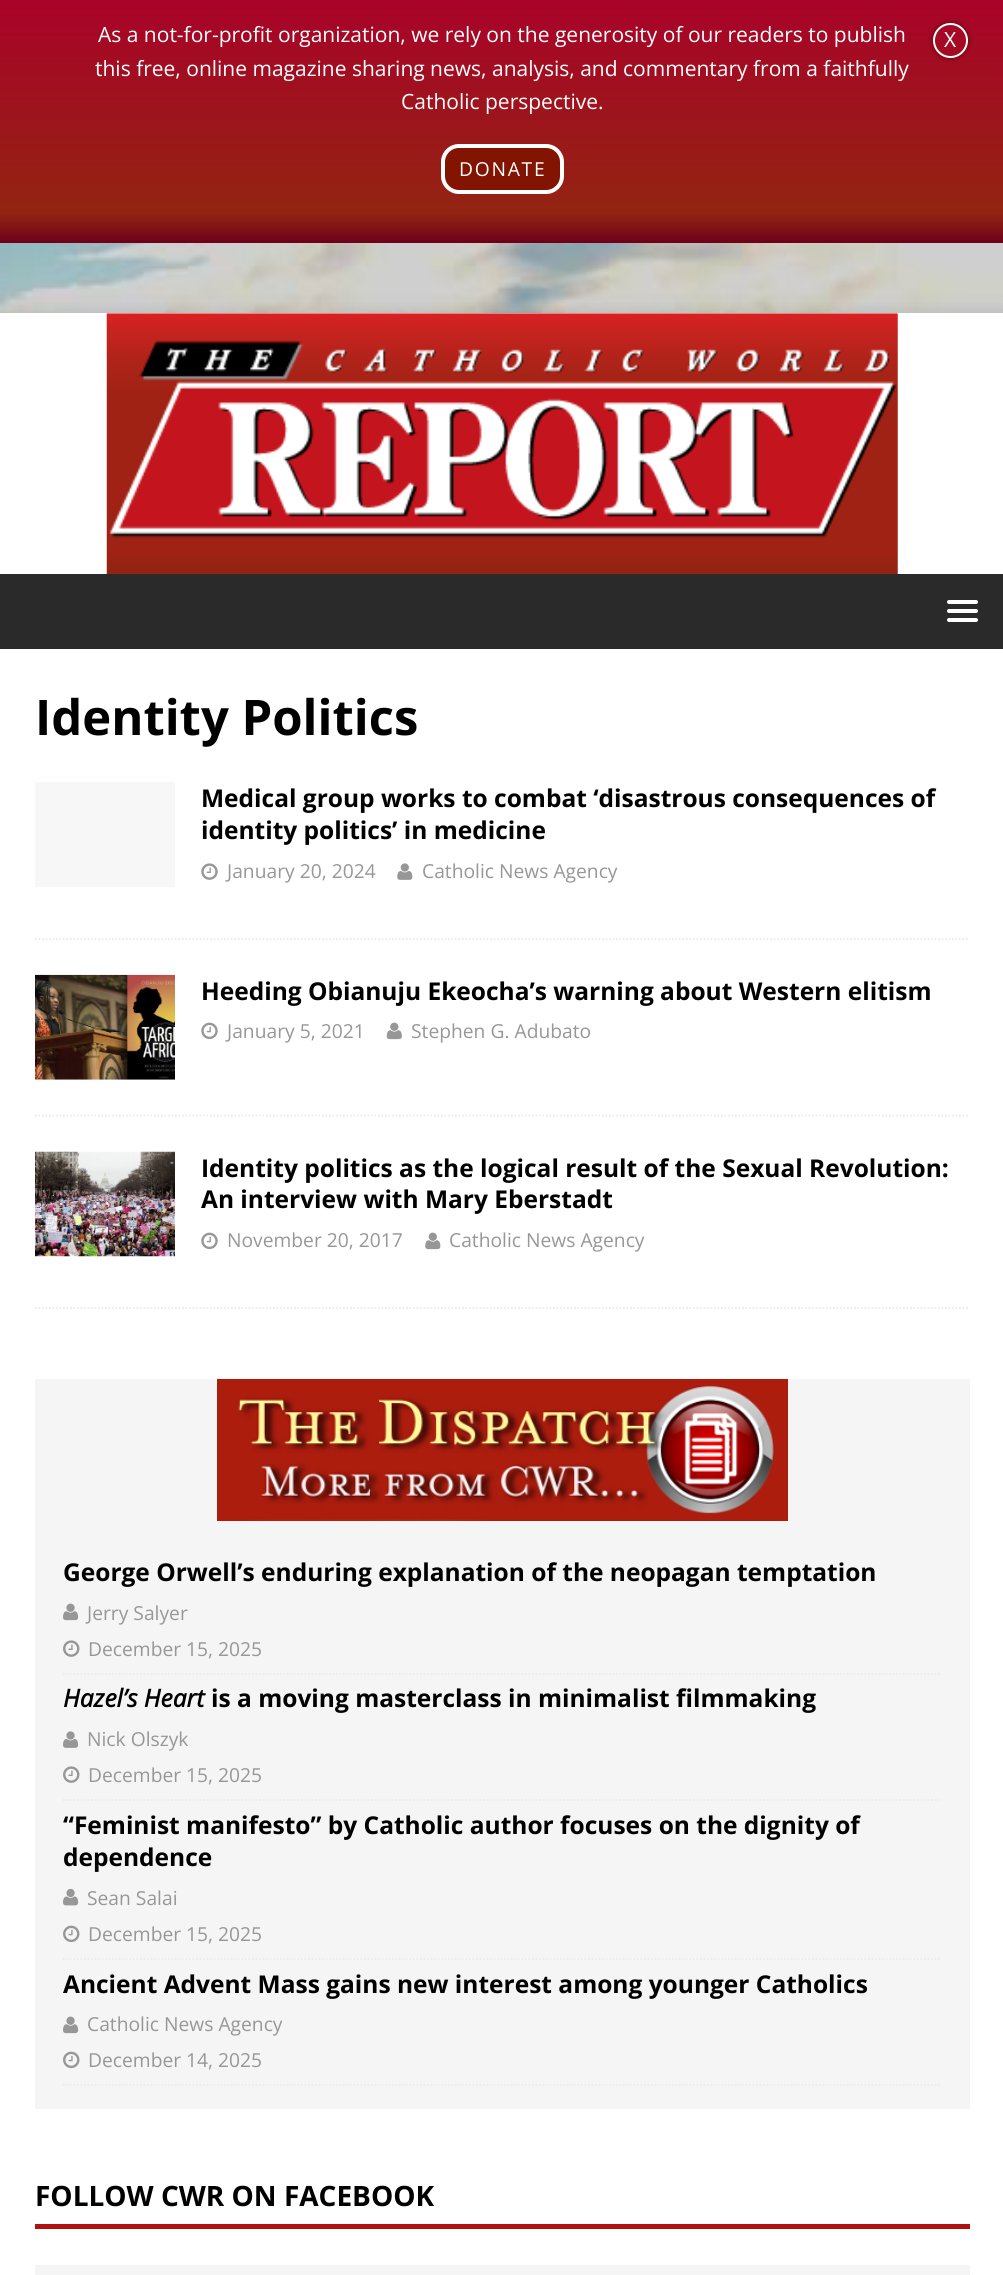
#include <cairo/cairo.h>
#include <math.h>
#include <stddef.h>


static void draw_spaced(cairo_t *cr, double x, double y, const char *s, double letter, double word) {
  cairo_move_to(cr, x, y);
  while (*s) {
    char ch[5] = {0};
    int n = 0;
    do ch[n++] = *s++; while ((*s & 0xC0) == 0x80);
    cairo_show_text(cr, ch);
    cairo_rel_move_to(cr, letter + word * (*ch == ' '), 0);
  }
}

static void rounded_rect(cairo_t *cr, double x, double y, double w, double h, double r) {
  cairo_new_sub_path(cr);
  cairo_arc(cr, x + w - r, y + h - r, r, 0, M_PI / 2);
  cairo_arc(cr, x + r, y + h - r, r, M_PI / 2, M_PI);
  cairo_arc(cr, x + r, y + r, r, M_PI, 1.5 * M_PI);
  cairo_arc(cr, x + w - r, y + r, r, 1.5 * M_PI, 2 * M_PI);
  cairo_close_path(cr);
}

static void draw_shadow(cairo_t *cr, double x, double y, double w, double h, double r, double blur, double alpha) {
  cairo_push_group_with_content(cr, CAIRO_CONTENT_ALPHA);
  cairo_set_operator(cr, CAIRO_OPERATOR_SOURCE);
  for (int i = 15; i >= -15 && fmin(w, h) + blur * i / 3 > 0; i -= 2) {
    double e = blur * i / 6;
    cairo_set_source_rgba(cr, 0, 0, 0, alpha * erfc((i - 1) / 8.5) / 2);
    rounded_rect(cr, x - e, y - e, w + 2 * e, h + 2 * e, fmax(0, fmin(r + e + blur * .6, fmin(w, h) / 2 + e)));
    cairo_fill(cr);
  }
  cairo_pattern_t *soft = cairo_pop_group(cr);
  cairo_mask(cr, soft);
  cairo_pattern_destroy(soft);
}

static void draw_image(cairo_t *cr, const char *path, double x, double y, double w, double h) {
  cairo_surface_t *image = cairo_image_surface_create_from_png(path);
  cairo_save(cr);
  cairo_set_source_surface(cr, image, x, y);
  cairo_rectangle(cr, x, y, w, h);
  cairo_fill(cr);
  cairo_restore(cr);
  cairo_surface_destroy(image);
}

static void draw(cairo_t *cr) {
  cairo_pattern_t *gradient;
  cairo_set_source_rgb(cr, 1, 1, 1);
  cairo_paint(cr);
  draw_image(cr, "images/1.png", 0, 243, 1003, 70);
  gradient = cairo_pattern_create_linear(502, 0, 502, 243);
  cairo_pattern_add_color_stop_rgba(gradient, 0, 169 / 255.0, 3 / 255.0, 41 / 255.0, 1);
  cairo_pattern_add_color_stop_rgba(gradient, 0.88, 146 / 255.0, 36 / 255.0, 17 / 255.0, 1);
  cairo_pattern_add_color_stop_rgba(gradient, 1, 109 / 255.0, 0, 25 / 255.0, 1);
  cairo_set_source(cr, gradient);
  cairo_pattern_destroy(gradient);
  cairo_rectangle(cr, 0, 0, 1003, 243);
  cairo_fill(cr);
  cairo_set_source_rgb(cr, 130 / 255.0, 20 / 255.0, 1 / 255.0);
  rounded_rect(cr, 443, 146, 119, 46, 16);
  cairo_fill_preserve(cr);
  cairo_set_source_rgb(cr, 1, 1, 1);
  cairo_set_line_width(cr, 4);
  cairo_stroke(cr);
  cairo_save(cr);
  cairo_set_fill_rule(cr, CAIRO_FILL_RULE_EVEN_ODD);
  cairo_new_path(cr);
  cairo_move_to(cr, 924, 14);
  cairo_line_to(cr, 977, 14);
  cairo_line_to(cr, 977, 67);
  cairo_line_to(cr, 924, 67);
  cairo_close_path(cr);
  cairo_move_to(cr, 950.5, 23);
  cairo_curve_to(cr, 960, 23, 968, 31, 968, 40.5);
  cairo_curve_to(cr, 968, 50, 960, 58, 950.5, 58);
  cairo_curve_to(cr, 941, 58, 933, 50, 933, 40.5);
  cairo_curve_to(cr, 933, 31, 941, 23, 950.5, 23);
  cairo_close_path(cr);
  cairo_clip(cr);
  cairo_set_source_rgb(cr, 89 / 255.0, 3 / 255.0, 0);
  draw_shadow(cr, 933, 23, 35, 35, 17.5, 2.5, 1);
  cairo_restore(cr);
  cairo_arc(cr, 950.5, 40.5, 16.5, 0, 2 * M_PI);
  cairo_set_line_width(cr, 2);
  cairo_stroke(cr);
  cairo_set_source_rgb(cr, 50 / 255.0, 50 / 255.0, 50 / 255.0);
  draw_shadow(cr, 0, 313, 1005, 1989, 0, 9, 0.17);
  cairo_set_source_rgb(cr, 1, 1, 1);
  cairo_rectangle(cr, 0, 313, 1003, 261);
  cairo_fill(cr);
  draw_image(cr, "images/2.png", 106, 313, 792, 261);
  cairo_set_source_rgb(cr, 42 / 255.0, 42 / 255.0, 42 / 255.0);
  cairo_rectangle(cr, 0, 574, 1003, 75);
  cairo_fill(cr);
  cairo_set_source_rgb(cr, 1, 1, 1);
  rounded_rect(cr, 947, 600, 31, 4, 2);
  cairo_fill(cr);
  rounded_rect(cr, 947, 609, 31, 4, 2);
  cairo_fill(cr);
  rounded_rect(cr, 947, 618, 31, 4, 2);
  cairo_fill(cr);
  cairo_rectangle(cr, 0, 649, 1003, 1626);
  cairo_fill(cr);
  cairo_new_path(cr);
  cairo_move_to(cr, 35, 939);
  cairo_line_to(cr, 969.5, 939);
  cairo_set_source_rgb(cr, 235 / 255.0, 235 / 255.0, 235 / 255.0);
  cairo_set_line_width(cr, 1.8);
  cairo_set_dash(cr, (double[]){1.75, 1.75}, 2, 0);
  cairo_stroke(cr);
  cairo_set_source_rgb(cr, 247 / 255.0, 247 / 255.0, 247 / 255.0);
  cairo_rectangle(cr, 35, 782, 140, 105);
  cairo_fill(cr);
  draw_image(cr, "images/3.png", 201, 863, 17, 17);
  draw_image(cr, "images/4.png", 397, 863, 16, 17);
  cairo_new_path(cr);
  cairo_move_to(cr, 35, 1115.5);
  cairo_line_to(cr, 969.5, 1115.5);
  cairo_set_source_rgb(cr, 235 / 255.0, 235 / 255.0, 235 / 255.0);
  cairo_stroke(cr);
  draw_image(cr, "images/5.png", 35, 974, 140, 106);
  draw_image(cr, "images/6.png", 201, 1022, 17, 18);
  draw_image(cr, "images/7.png", 386, 1022, 16, 18);
  cairo_new_path(cr);
  cairo_move_to(cr, 35, 1308);
  cairo_line_to(cr, 969.5, 1308);
  cairo_stroke(cr);
  draw_image(cr, "images/8.png", 35, 1151, 140, 106);
  draw_image(cr, "images/6.png", 201, 1232, 17, 18);
  draw_image(cr, "images/9.png", 425, 1232, 16, 18);
  cairo_set_source_rgb(cr, 245 / 255.0, 245 / 255.0, 245 / 255.0);
  cairo_rectangle(cr, 35, 1379, 935, 730);
  cairo_fill(cr);
  cairo_set_source_rgb(cr, 172 / 255.0, 29 / 255.0, 14 / 255.0);
  cairo_rectangle(cr, 217, 1379, 571, 142);
  cairo_fill(cr);
  draw_image(cr, "images/10.png", 238, 1385, 537, 136);
  cairo_new_path(cr);
  cairo_move_to(cr, 63, 1674);
  cairo_line_to(cr, 941.5, 1674);
  cairo_set_source_rgb(cr, 235 / 255.0, 235 / 255.0, 235 / 255.0);
  cairo_stroke(cr);
  draw_image(cr, "images/11.png", 63, 1603, 16, 18);
  draw_image(cr, "images/12.png", 63, 1640, 17, 17);
  cairo_new_path(cr);
  cairo_move_to(cr, 63, 1800);
  cairo_line_to(cr, 941.5, 1800);
  cairo_stroke(cr);
  draw_image(cr, "images/13.png", 63, 1731, 16, 17);
  draw_image(cr, "images/12.png", 63, 1766, 17, 17);
  cairo_new_path(cr);
  cairo_move_to(cr, 63, 1959);
  cairo_line_to(cr, 941.5, 1959);
  cairo_stroke(cr);
  draw_image(cr, "images/14.png", 63, 1888, 16, 18);
  draw_image(cr, "images/15.png", 63, 1925, 17, 18);
  cairo_new_path(cr);
  cairo_move_to(cr, 63, 2085);
  cairo_line_to(cr, 941.5, 2085);
  cairo_stroke(cr);
  draw_image(cr, "images/11.png", 63, 2016, 16, 18);
  draw_image(cr, "images/15.png", 63, 2051, 17, 18);
  cairo_set_source_rgb(cr, 175 / 255.0, 17 / 255.0, 17 / 255.0);
  cairo_rectangle(cr, 35, 2224, 935, 5);
  cairo_fill(cr);
  cairo_set_source_rgb(cr, 245 / 255.0, 245 / 255.0, 245 / 255.0);
  cairo_rectangle(cr, 35, 2265, 935, 10);
  cairo_fill(cr);
  cairo_select_font_face(cr, "Open Sans", CAIRO_FONT_SLANT_NORMAL, CAIRO_FONT_WEIGHT_NORMAL);
  cairo_set_font_size(cr, 21);
  cairo_set_source_rgb(cr, 1, 1, 1);
  cairo_move_to(cr, 98, 42);
  cairo_show_text(cr, "As a not-for-profit organization, we rely on the generosity of our readers to publish");
  cairo_move_to(cr, 95, 76);
  cairo_show_text(cr, "this free, online magazine sharing news, analysis, and commentary from a faithfully");
  cairo_move_to(cr, 401, 109);
  cairo_show_text(cr, "Catholic perspective.");
  cairo_set_font_size(cr, 19.25);
  draw_spaced(cr, 459, 176, "DONATE", 1.75, 0);
  cairo_set_font_size(cr, 21);
  cairo_move_to(cr, 944, 47);
  cairo_show_text(cr, "X");
  cairo_select_font_face(cr, "Open Sans", CAIRO_FONT_SLANT_NORMAL, CAIRO_FONT_WEIGHT_BOLD);
  cairo_set_font_size(cr, 49);
  cairo_set_source_rgb(cr, 0, 0, 0);
  cairo_move_to(cr, 35, 735);
  cairo_show_text(cr, "Identity Politics");
  cairo_set_font_size(cr, 24.5);
  cairo_move_to(cr, 201, 807);
  cairo_show_text(cr, "Medical group works to combat ‘disastrous consequences of");
  cairo_move_to(cr, 201, 839);
  cairo_show_text(cr, "identity politics’ in medicine");
  cairo_select_font_face(cr, "Open Sans", CAIRO_FONT_SLANT_NORMAL, CAIRO_FONT_WEIGHT_NORMAL);
  cairo_set_font_size(cr, 19.25);
  cairo_set_source_rgb(cr, 151 / 255.0, 151 / 255.0, 151 / 255.0);
  cairo_move_to(cr, 227, 878);
  cairo_show_text(cr, "January 20, 2024");
  cairo_move_to(cr, 422, 878);
  cairo_show_text(cr, "Catholic News Agency");
  cairo_select_font_face(cr, "Open Sans", CAIRO_FONT_SLANT_NORMAL, CAIRO_FONT_WEIGHT_BOLD);
  cairo_set_font_size(cr, 24.5);
  cairo_set_source_rgb(cr, 0, 0, 0);
  cairo_move_to(cr, 201, 1000);
  cairo_show_text(cr, "Heeding Obianuju Ekeocha’s warning about Western elitism");
  cairo_select_font_face(cr, "Open Sans", CAIRO_FONT_SLANT_NORMAL, CAIRO_FONT_WEIGHT_NORMAL);
  cairo_set_font_size(cr, 19.25);
  cairo_set_source_rgb(cr, 151 / 255.0, 151 / 255.0, 151 / 255.0);
  cairo_move_to(cr, 227, 1038);
  cairo_show_text(cr, "January 5, 2021");
  cairo_move_to(cr, 411, 1038);
  cairo_show_text(cr, "Stephen G. Adubato");
  cairo_select_font_face(cr, "Open Sans", CAIRO_FONT_SLANT_NORMAL, CAIRO_FONT_WEIGHT_BOLD);
  cairo_set_font_size(cr, 24.5);
  cairo_set_source_rgb(cr, 0, 0, 0);
  cairo_move_to(cr, 201, 1177);
  cairo_show_text(cr, "Identity politics as the logical result of the Sexual Revolution:");
  cairo_move_to(cr, 201, 1208);
  cairo_show_text(cr, "An interview with Mary Eberstadt");
  cairo_select_font_face(cr, "Open Sans", CAIRO_FONT_SLANT_NORMAL, CAIRO_FONT_WEIGHT_NORMAL);
  cairo_set_font_size(cr, 19.25);
  cairo_set_source_rgb(cr, 151 / 255.0, 151 / 255.0, 151 / 255.0);
  cairo_move_to(cr, 227, 1247);
  cairo_show_text(cr, "November 20, 2017");
  cairo_move_to(cr, 449, 1247);
  cairo_show_text(cr, "Catholic News Agency");
  cairo_select_font_face(cr, "Open Sans", CAIRO_FONT_SLANT_NORMAL, CAIRO_FONT_WEIGHT_BOLD);
  cairo_set_font_size(cr, 24.5);
  cairo_set_source_rgb(cr, 0, 0, 0);
  cairo_move_to(cr, 63, 1581);
  cairo_show_text(cr, "George Orwell’s enduring explanation of the neopagan temptation");
  cairo_select_font_face(cr, "Open Sans", CAIRO_FONT_SLANT_NORMAL, CAIRO_FONT_WEIGHT_NORMAL);
  cairo_set_font_size(cr, 19.25);
  cairo_set_source_rgb(cr, 151 / 255.0, 151 / 255.0, 151 / 255.0);
  cairo_move_to(cr, 87, 1620);
  cairo_show_text(cr, "Jerry Salyer");
  cairo_move_to(cr, 88, 1656);
  cairo_show_text(cr, "December 15, 2025");
  cairo_select_font_face(cr, "Open Sans", CAIRO_FONT_SLANT_ITALIC, CAIRO_FONT_WEIGHT_BOLD);
  cairo_set_font_size(cr, 24.5);
  cairo_set_source_rgb(cr, 0, 0, 0);
  cairo_move_to(cr, 63, 1707);
  cairo_show_text(cr, "Hazel’s Heart");
  cairo_select_font_face(cr, "Open Sans", CAIRO_FONT_SLANT_NORMAL, CAIRO_FONT_WEIGHT_BOLD);
  cairo_move_to(cr, 211, 1707);
  cairo_show_text(cr, "is a moving masterclass in minimalist filmmaking");
  cairo_select_font_face(cr, "Open Sans", CAIRO_FONT_SLANT_NORMAL, CAIRO_FONT_WEIGHT_NORMAL);
  cairo_set_font_size(cr, 19.25);
  cairo_set_source_rgb(cr, 151 / 255.0, 151 / 255.0, 151 / 255.0);
  cairo_move_to(cr, 87, 1746);
  cairo_show_text(cr, "Nick Olszyk");
  cairo_move_to(cr, 88, 1782);
  cairo_show_text(cr, "December 15, 2025");
  cairo_select_font_face(cr, "Open Sans", CAIRO_FONT_SLANT_NORMAL, CAIRO_FONT_WEIGHT_BOLD);
  cairo_set_font_size(cr, 24.5);
  cairo_set_source_rgb(cr, 0, 0, 0);
  cairo_move_to(cr, 63, 1834);
  cairo_show_text(cr, "“Feminist manifesto” by Catholic author focuses on the dignity of");
  cairo_move_to(cr, 63, 1866);
  cairo_show_text(cr, "dependence");
  cairo_select_font_face(cr, "Open Sans", CAIRO_FONT_SLANT_NORMAL, CAIRO_FONT_WEIGHT_NORMAL);
  cairo_set_font_size(cr, 19.25);
  cairo_set_source_rgb(cr, 151 / 255.0, 151 / 255.0, 151 / 255.0);
  cairo_move_to(cr, 87, 1905);
  cairo_show_text(cr, "Sean Salai");
  cairo_move_to(cr, 88, 1941);
  cairo_show_text(cr, "December 15, 2025");
  cairo_select_font_face(cr, "Open Sans", CAIRO_FONT_SLANT_NORMAL, CAIRO_FONT_WEIGHT_BOLD);
  cairo_set_font_size(cr, 24.5);
  cairo_set_source_rgb(cr, 0, 0, 0);
  cairo_move_to(cr, 63, 1993);
  cairo_show_text(cr, "Ancient Advent Mass gains new interest among younger Catholics");
  cairo_select_font_face(cr, "Open Sans", CAIRO_FONT_SLANT_NORMAL, CAIRO_FONT_WEIGHT_NORMAL);
  cairo_set_font_size(cr, 19.25);
  cairo_set_source_rgb(cr, 151 / 255.0, 151 / 255.0, 151 / 255.0);
  cairo_move_to(cr, 87, 2031);
  cairo_show_text(cr, "Catholic News Agency");
  cairo_move_to(cr, 88, 2067);
  cairo_show_text(cr, "December 14, 2025");
  cairo_select_font_face(cr, "Open Sans", CAIRO_FONT_SLANT_NORMAL, CAIRO_FONT_WEIGHT_BOLD);
  cairo_set_font_size(cr, 28);
  cairo_set_source_rgb(cr, 0, 0, 0);
  cairo_move_to(cr, 35, 2206);
  cairo_show_text(cr, "FOLLOW CWR ON FACEBOOK");
}

int main(void) {
  cairo_surface_t *surface = cairo_image_surface_create(CAIRO_FORMAT_RGB24, 1003, 2275);
  cairo_t *cr = cairo_create(surface);
  cairo_font_options_t *options = cairo_font_options_create();
  cairo_font_options_set_hint_metrics(options, CAIRO_HINT_METRICS_OFF);
  cairo_font_options_set_hint_style(options, CAIRO_HINT_STYLE_NONE);
  cairo_set_font_options(cr, options);
  cairo_set_miter_limit(cr, 4);
  draw(cr);
  cairo_surface_write_to_png(surface, "out.png");
  cairo_font_options_destroy(options);
  cairo_destroy(cr);
  cairo_surface_destroy(surface);
  return 0;
}
